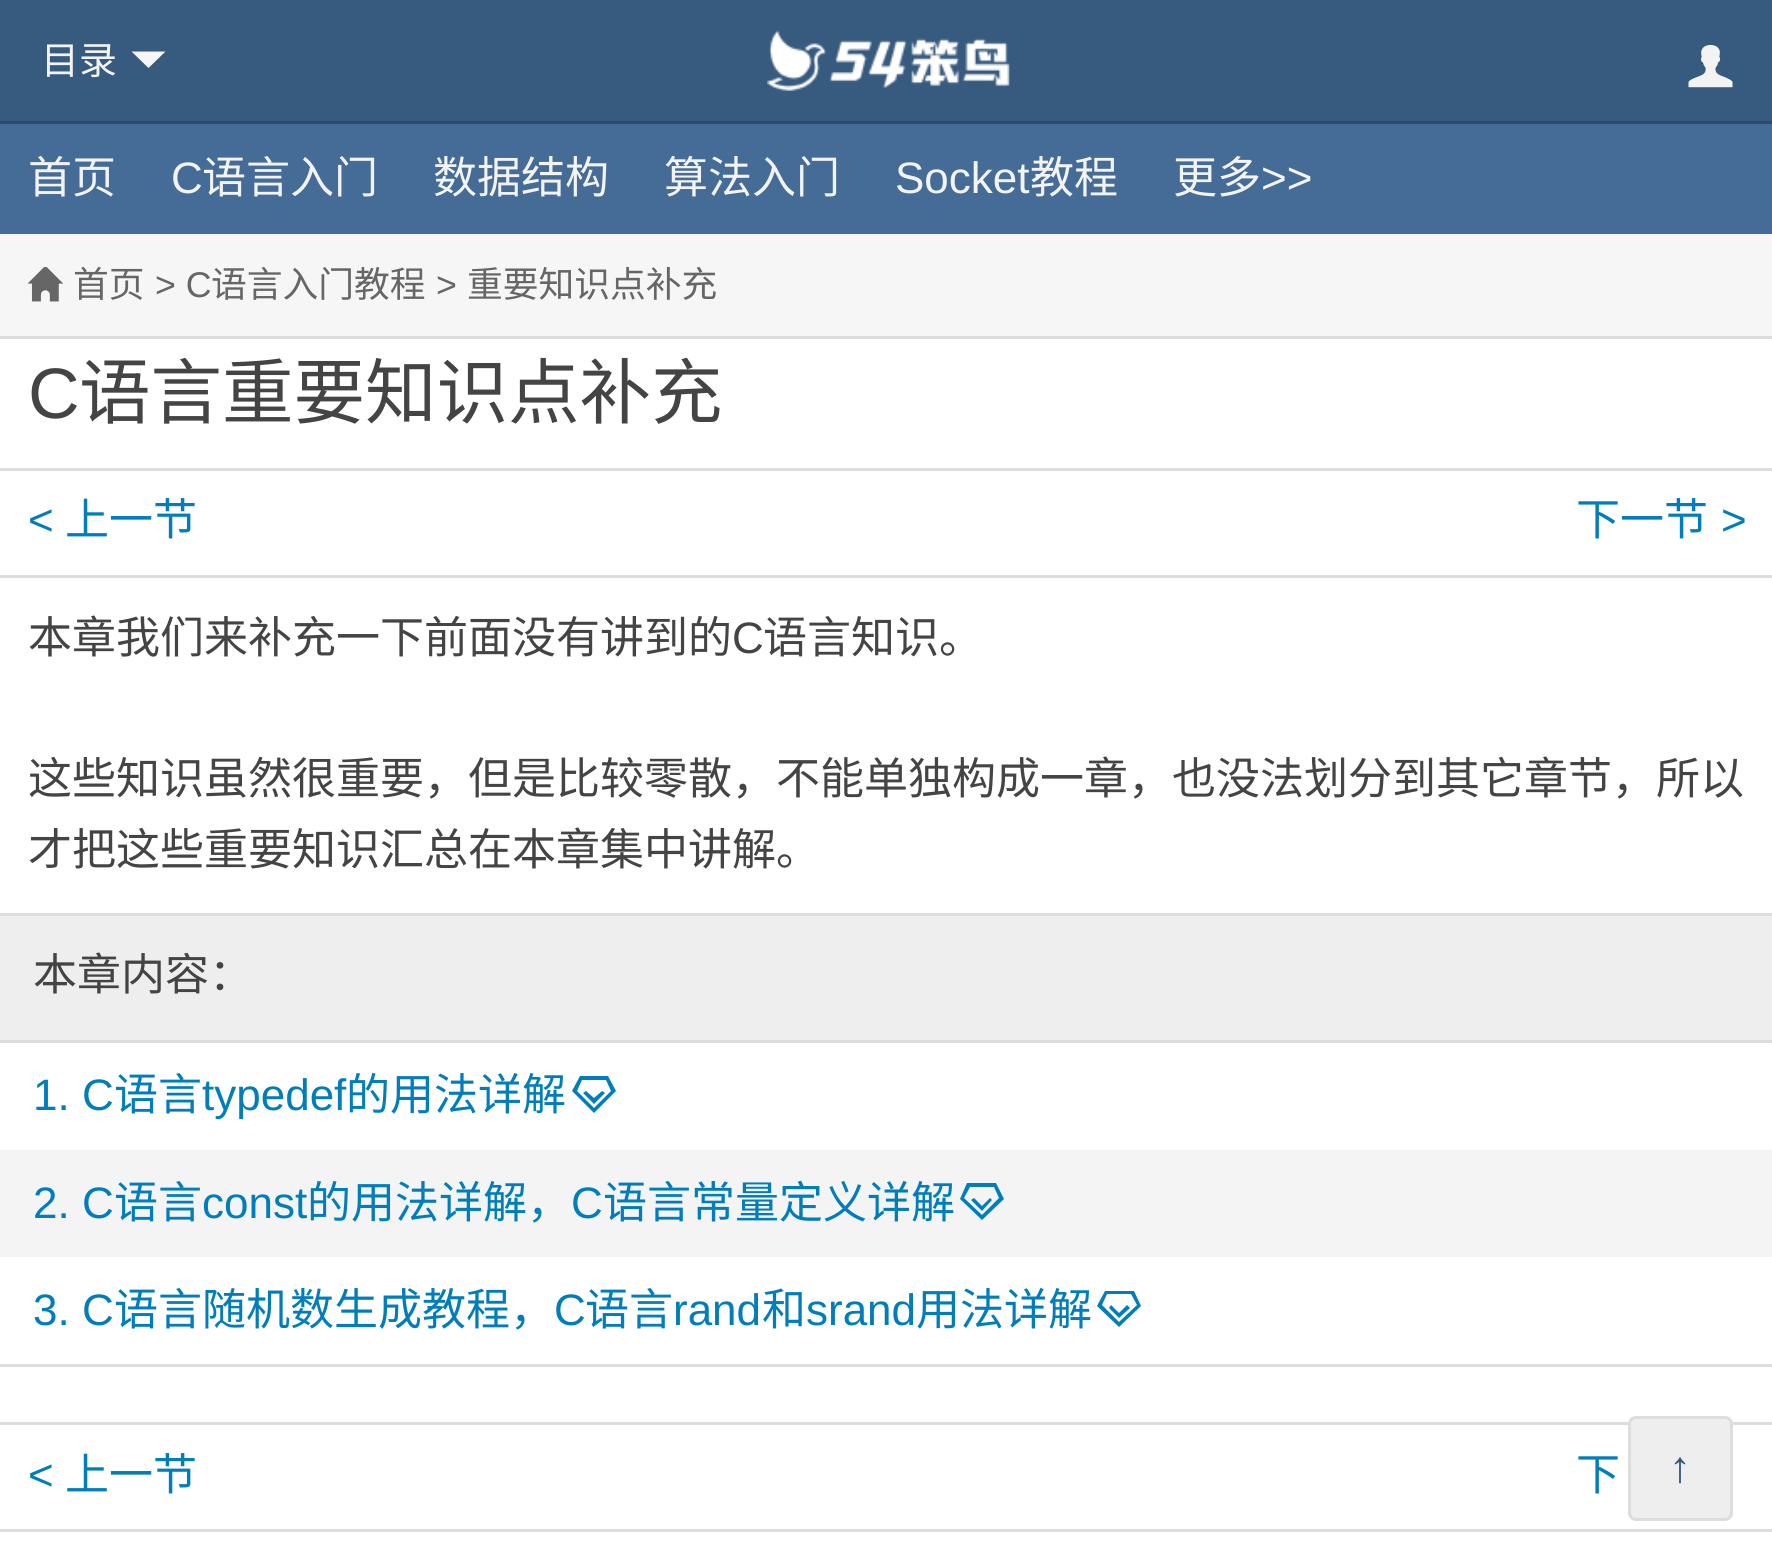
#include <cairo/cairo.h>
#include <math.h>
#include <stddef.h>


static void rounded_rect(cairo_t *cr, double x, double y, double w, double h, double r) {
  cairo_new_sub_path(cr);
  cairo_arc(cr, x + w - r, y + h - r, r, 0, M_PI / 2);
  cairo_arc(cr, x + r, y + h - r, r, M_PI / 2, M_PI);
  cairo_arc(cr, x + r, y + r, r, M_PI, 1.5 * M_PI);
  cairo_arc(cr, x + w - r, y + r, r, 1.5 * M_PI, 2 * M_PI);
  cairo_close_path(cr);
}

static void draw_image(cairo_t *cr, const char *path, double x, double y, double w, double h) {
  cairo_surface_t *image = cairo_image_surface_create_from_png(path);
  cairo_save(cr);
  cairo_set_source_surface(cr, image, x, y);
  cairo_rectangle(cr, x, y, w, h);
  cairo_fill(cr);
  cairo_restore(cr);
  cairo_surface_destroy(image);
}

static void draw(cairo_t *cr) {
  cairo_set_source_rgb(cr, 1, 1, 1);
  cairo_paint(cr);
  cairo_set_source_rgb(cr, 55 / 255.0, 90 / 255.0, 127 / 255.0);
  cairo_rectangle(cr, 0, 0, 1772, 121);
  cairo_fill(cr);
  cairo_set_source_rgb(cr, 246 / 255.0, 246 / 255.0, 246 / 255.0);
  cairo_new_path(cr);
  cairo_move_to(cr, 131.5, 51.5);
  cairo_line_to(cr, 148.5, 68);
  cairo_line_to(cr, 165.5, 51.5);
  cairo_close_path(cr);
  cairo_fill(cr);
  draw_image(cr, "images/1.png", 767, 30, 243, 61);
  draw_image(cr, "images/2.png", 1688, 44, 45, 44);
  cairo_set_source_rgb(cr, 69 / 255.0, 108 / 255.0, 150 / 255.0);
  cairo_rectangle(cr, 0, 124, 1772, 110);
  cairo_fill(cr);
  cairo_set_source_rgb(cr, 47 / 255.0, 75 / 255.0, 105 / 255.0);
  cairo_rectangle(cr, 0, 121, 1772, 3);
  cairo_fill(cr);
  cairo_set_source_rgb(cr, 246 / 255.0, 246 / 255.0, 246 / 255.0);
  cairo_rectangle(cr, 0, 234, 1772, 102);
  cairo_fill(cr);
  cairo_set_source_rgb(cr, 221 / 255.0, 221 / 255.0, 221 / 255.0);
  cairo_rectangle(cr, 0, 336, 1772, 3);
  cairo_fill(cr);
  draw_image(cr, "images/3.png", 28, 267, 36, 35);
  cairo_rectangle(cr, 0, 468, 1772, 3);
  cairo_fill(cr);
  cairo_rectangle(cr, 0, 575, 1772, 3);
  cairo_fill(cr);
  cairo_rectangle(cr, 0, 1364, 1772, 3);
  cairo_fill(cr);
  cairo_set_source_rgb(cr, 238 / 255.0, 238 / 255.0, 238 / 255.0);
  cairo_rectangle(cr, 0, 916, 1772, 124);
  cairo_fill(cr);
  cairo_set_source_rgb(cr, 221 / 255.0, 221 / 255.0, 221 / 255.0);
  cairo_rectangle(cr, 0, 913, 1772, 3);
  cairo_fill(cr);
  cairo_rectangle(cr, 0, 1040, 1772, 3);
  cairo_fill(cr);
  cairo_set_source_rgb(cr, 0, 125 / 255.0, 187 / 255.0);
  cairo_new_path(cr);
  cairo_move_to(cr, 608, 1076);
  cairo_line_to(cr, 580, 1076);
  cairo_line_to(cr, 572, 1091);
  cairo_line_to(cr, 594, 1113);
  cairo_line_to(cr, 616, 1091);
  cairo_close_path(cr);
  cairo_move_to(cr, 577, 1091);
  cairo_line_to(cr, 582, 1080);
  cairo_line_to(cr, 606, 1080);
  cairo_line_to(cr, 611, 1091);
  cairo_line_to(cr, 594, 1108);
  cairo_close_path(cr);
  cairo_move_to(cr, 594, 1098);
  cairo_line_to(cr, 586, 1091);
  cairo_line_to(cr, 583, 1093);
  cairo_line_to(cr, 594, 1104);
  cairo_line_to(cr, 605, 1093);
  cairo_line_to(cr, 602, 1091);
  cairo_close_path(cr);
  cairo_fill(cr);
  cairo_set_source_rgb(cr, 244 / 255.0, 244 / 255.0, 244 / 255.0);
  cairo_rectangle(cr, 0, 1150, 1772, 107);
  cairo_fill(cr);
  cairo_set_source_rgb(cr, 0, 125 / 255.0, 187 / 255.0);
  cairo_new_path(cr);
  cairo_move_to(cr, 996, 1183);
  cairo_line_to(cr, 967, 1183);
  cairo_line_to(cr, 960, 1199);
  cairo_line_to(cr, 982, 1220);
  cairo_line_to(cr, 1004, 1199);
  cairo_close_path(cr);
  cairo_move_to(cr, 964, 1198);
  cairo_line_to(cr, 970, 1187);
  cairo_line_to(cr, 994, 1187);
  cairo_line_to(cr, 999, 1198);
  cairo_line_to(cr, 982, 1215);
  cairo_close_path(cr);
  cairo_move_to(cr, 982, 1206);
  cairo_line_to(cr, 974, 1198);
  cairo_line_to(cr, 971, 1200);
  cairo_line_to(cr, 982, 1211);
  cairo_line_to(cr, 992, 1200);
  cairo_line_to(cr, 990, 1198);
  cairo_close_path(cr);
  cairo_fill(cr);
  cairo_new_path(cr);
  cairo_move_to(cr, 1134, 1291);
  cairo_line_to(cr, 1105, 1291);
  cairo_line_to(cr, 1097, 1306);
  cairo_line_to(cr, 1119, 1327);
  cairo_line_to(cr, 1141, 1306);
  cairo_close_path(cr);
  cairo_move_to(cr, 1102, 1305);
  cairo_line_to(cr, 1107, 1294);
  cairo_line_to(cr, 1131, 1294);
  cairo_line_to(cr, 1137, 1305);
  cairo_line_to(cr, 1119, 1322);
  cairo_close_path(cr);
  cairo_move_to(cr, 1119, 1313);
  cairo_line_to(cr, 1111, 1305);
  cairo_line_to(cr, 1109, 1308);
  cairo_line_to(cr, 1119, 1318);
  cairo_line_to(cr, 1130, 1308);
  cairo_line_to(cr, 1127, 1305);
  cairo_close_path(cr);
  cairo_fill(cr);
  cairo_set_source_rgb(cr, 221 / 255.0, 221 / 255.0, 221 / 255.0);
  cairo_rectangle(cr, 0, 1422, 1772, 3);
  cairo_fill(cr);
  cairo_rectangle(cr, 0, 1529, 1772, 3);
  cairo_fill(cr);
  cairo_set_source_rgb(cr, 238 / 255.0, 238 / 255.0, 238 / 255.0);
  rounded_rect(cr, 1629.5, 1417.5, 102, 102, 6.5);
  cairo_fill_preserve(cr);
  cairo_set_source_rgb(cr, 221 / 255.0, 221 / 255.0, 221 / 255.0);
  cairo_set_line_width(cr, 3);
  cairo_stroke(cr);
  cairo_select_font_face(cr, "Noto Sans CJK SC", CAIRO_FONT_SLANT_NORMAL, CAIRO_FONT_WEIGHT_NORMAL);
  cairo_set_font_size(cr, 38);
  cairo_set_source_rgb(cr, 243 / 255.0, 243 / 255.0, 243 / 255.0);
  cairo_move_to(cr, 41, 74);
  cairo_show_text(cr, "目录");
  cairo_set_font_size(cr, 44);
  cairo_move_to(cr, 28, 193);
  cairo_show_text(cr, "首页");
  cairo_select_font_face(cr, "Liberation Sans", CAIRO_FONT_SLANT_NORMAL, CAIRO_FONT_WEIGHT_NORMAL);
  cairo_move_to(cr, 171, 193);
  cairo_show_text(cr, "C");
  cairo_select_font_face(cr, "Noto Sans CJK SC", CAIRO_FONT_SLANT_NORMAL, CAIRO_FONT_WEIGHT_NORMAL);
  cairo_move_to(cr, 202, 193);
  cairo_show_text(cr, "语言入门");
  cairo_move_to(cr, 433, 193);
  cairo_show_text(cr, "数据结构");
  cairo_move_to(cr, 664, 193);
  cairo_show_text(cr, "算法入门");
  cairo_select_font_face(cr, "Liberation Sans", CAIRO_FONT_SLANT_NORMAL, CAIRO_FONT_WEIGHT_NORMAL);
  cairo_move_to(cr, 895, 193);
  cairo_show_text(cr, "Socket");
  cairo_select_font_face(cr, "Noto Sans CJK SC", CAIRO_FONT_SLANT_NORMAL, CAIRO_FONT_WEIGHT_NORMAL);
  cairo_move_to(cr, 1030, 193);
  cairo_show_text(cr, "教程");
  cairo_move_to(cr, 1173, 193);
  cairo_show_text(cr, "更多");
  cairo_select_font_face(cr, "Liberation Sans", CAIRO_FONT_SLANT_NORMAL, CAIRO_FONT_WEIGHT_NORMAL);
  cairo_move_to(cr, 1261, 193);
  cairo_show_text(cr, ">>");
  cairo_select_font_face(cr, "Noto Sans CJK SC", CAIRO_FONT_SLANT_NORMAL, CAIRO_FONT_WEIGHT_NORMAL);
  cairo_set_font_size(cr, 35.75);
  cairo_set_source_rgb(cr, 102 / 255.0, 102 / 255.0, 102 / 255.0);
  cairo_move_to(cr, 73, 297);
  cairo_show_text(cr, "首页");
  cairo_select_font_face(cr, "Liberation Sans", CAIRO_FONT_SLANT_NORMAL, CAIRO_FONT_WEIGHT_NORMAL);
  cairo_move_to(cr, 155, 297);
  cairo_show_text(cr, "> C");
  cairo_select_font_face(cr, "Noto Sans CJK SC", CAIRO_FONT_SLANT_NORMAL, CAIRO_FONT_WEIGHT_NORMAL);
  cairo_move_to(cr, 211, 297);
  cairo_show_text(cr, "语言入门教程");
  cairo_select_font_face(cr, "Liberation Sans", CAIRO_FONT_SLANT_NORMAL, CAIRO_FONT_WEIGHT_NORMAL);
  cairo_move_to(cr, 436, 297);
  cairo_show_text(cr, ">");
  cairo_select_font_face(cr, "Noto Sans CJK SC", CAIRO_FONT_SLANT_NORMAL, CAIRO_FONT_WEIGHT_NORMAL);
  cairo_move_to(cr, 467, 297);
  cairo_show_text(cr, "重要知识点补充");
  cairo_select_font_face(cr, "Liberation Sans", CAIRO_FONT_SLANT_NORMAL, CAIRO_FONT_WEIGHT_NORMAL);
  cairo_set_font_size(cr, 71.5);
  cairo_set_source_rgb(cr, 68 / 255.0, 68 / 255.0, 68 / 255.0);
  cairo_move_to(cr, 28, 418);
  cairo_show_text(cr, "C");
  cairo_select_font_face(cr, "Noto Sans CJK SC", CAIRO_FONT_SLANT_NORMAL, CAIRO_FONT_WEIGHT_NORMAL);
  cairo_move_to(cr, 79, 418);
  cairo_show_text(cr, "语言重要知识点补充");
  cairo_select_font_face(cr, "Liberation Sans", CAIRO_FONT_SLANT_NORMAL, CAIRO_FONT_WEIGHT_NORMAL);
  cairo_set_font_size(cr, 44);
  cairo_set_source_rgb(cr, 0, 125 / 255.0, 187 / 255.0);
  cairo_move_to(cr, 28, 535);
  cairo_show_text(cr, "<");
  cairo_select_font_face(cr, "Noto Sans CJK SC", CAIRO_FONT_SLANT_NORMAL, CAIRO_FONT_WEIGHT_NORMAL);
  cairo_move_to(cr, 65, 535);
  cairo_show_text(cr, "上一节");
  cairo_move_to(cr, 1576, 535);
  cairo_show_text(cr, "下一节");
  cairo_select_font_face(cr, "Liberation Sans", CAIRO_FONT_SLANT_NORMAL, CAIRO_FONT_WEIGHT_NORMAL);
  cairo_move_to(cr, 1721, 535);
  cairo_show_text(cr, ">");
  cairo_select_font_face(cr, "Noto Sans CJK SC", CAIRO_FONT_SLANT_NORMAL, CAIRO_FONT_WEIGHT_NORMAL);
  cairo_set_source_rgb(cr, 68 / 255.0, 68 / 255.0, 68 / 255.0);
  cairo_move_to(cr, 28, 653);
  cairo_show_text(cr, "本章我们来补充一下前面没有讲到的");
  cairo_select_font_face(cr, "Liberation Sans", CAIRO_FONT_SLANT_NORMAL, CAIRO_FONT_WEIGHT_NORMAL);
  cairo_move_to(cr, 732, 653);
  cairo_show_text(cr, "C");
  cairo_select_font_face(cr, "Noto Sans CJK SC", CAIRO_FONT_SLANT_NORMAL, CAIRO_FONT_WEIGHT_NORMAL);
  cairo_move_to(cr, 763, 653);
  cairo_show_text(cr, "语言知识。");
  cairo_move_to(cr, 28, 794);
  cairo_show_text(cr, "这些知识虽然很重要，但是比较零散，不能单独构成一章，也没法划分到其它章节，所以");
  cairo_move_to(cr, 28, 865);
  cairo_show_text(cr, "才把这些重要知识汇总在本章集中讲解。");
  cairo_move_to(cr, 33, 990);
  cairo_show_text(cr, "本章内容：");
  cairo_select_font_face(cr, "Liberation Sans", CAIRO_FONT_SLANT_NORMAL, CAIRO_FONT_WEIGHT_NORMAL);
  cairo_set_source_rgb(cr, 0, 125 / 255.0, 187 / 255.0);
  cairo_move_to(cr, 33, 1110);
  cairo_show_text(cr, "1. C");
  cairo_select_font_face(cr, "Noto Sans CJK SC", CAIRO_FONT_SLANT_NORMAL, CAIRO_FONT_WEIGHT_NORMAL);
  cairo_move_to(cr, 114, 1110);
  cairo_show_text(cr, "语言");
  cairo_select_font_face(cr, "Liberation Sans", CAIRO_FONT_SLANT_NORMAL, CAIRO_FONT_WEIGHT_NORMAL);
  cairo_move_to(cr, 202, 1110);
  cairo_show_text(cr, "typedef");
  cairo_select_font_face(cr, "Noto Sans CJK SC", CAIRO_FONT_SLANT_NORMAL, CAIRO_FONT_WEIGHT_NORMAL);
  cairo_move_to(cr, 346, 1110);
  cairo_show_text(cr, "的用法详解");
  cairo_select_font_face(cr, "Liberation Sans", CAIRO_FONT_SLANT_NORMAL, CAIRO_FONT_WEIGHT_NORMAL);
  cairo_move_to(cr, 33, 1218);
  cairo_show_text(cr, "2. C");
  cairo_select_font_face(cr, "Noto Sans CJK SC", CAIRO_FONT_SLANT_NORMAL, CAIRO_FONT_WEIGHT_NORMAL);
  cairo_move_to(cr, 114, 1218);
  cairo_show_text(cr, "语言");
  cairo_select_font_face(cr, "Liberation Sans", CAIRO_FONT_SLANT_NORMAL, CAIRO_FONT_WEIGHT_NORMAL);
  cairo_move_to(cr, 202, 1218);
  cairo_show_text(cr, "const");
  cairo_select_font_face(cr, "Noto Sans CJK SC", CAIRO_FONT_SLANT_NORMAL, CAIRO_FONT_WEIGHT_NORMAL);
  cairo_move_to(cr, 307, 1218);
  cairo_show_text(cr, "的用法详解，");
  cairo_select_font_face(cr, "Liberation Sans", CAIRO_FONT_SLANT_NORMAL, CAIRO_FONT_WEIGHT_NORMAL);
  cairo_move_to(cr, 571, 1218);
  cairo_show_text(cr, "C");
  cairo_select_font_face(cr, "Noto Sans CJK SC", CAIRO_FONT_SLANT_NORMAL, CAIRO_FONT_WEIGHT_NORMAL);
  cairo_move_to(cr, 603, 1218);
  cairo_show_text(cr, "语言常量定义详解");
  cairo_select_font_face(cr, "Liberation Sans", CAIRO_FONT_SLANT_NORMAL, CAIRO_FONT_WEIGHT_NORMAL);
  cairo_move_to(cr, 33, 1325);
  cairo_show_text(cr, "3. C");
  cairo_select_font_face(cr, "Noto Sans CJK SC", CAIRO_FONT_SLANT_NORMAL, CAIRO_FONT_WEIGHT_NORMAL);
  cairo_move_to(cr, 114, 1325);
  cairo_show_text(cr, "语言随机数生成教程，");
  cairo_select_font_face(cr, "Liberation Sans", CAIRO_FONT_SLANT_NORMAL, CAIRO_FONT_WEIGHT_NORMAL);
  cairo_move_to(cr, 554, 1325);
  cairo_show_text(cr, "C");
  cairo_select_font_face(cr, "Noto Sans CJK SC", CAIRO_FONT_SLANT_NORMAL, CAIRO_FONT_WEIGHT_NORMAL);
  cairo_move_to(cr, 585, 1325);
  cairo_show_text(cr, "语言");
  cairo_select_font_face(cr, "Liberation Sans", CAIRO_FONT_SLANT_NORMAL, CAIRO_FONT_WEIGHT_NORMAL);
  cairo_move_to(cr, 673, 1325);
  cairo_show_text(cr, "rand");
  cairo_select_font_face(cr, "Noto Sans CJK SC", CAIRO_FONT_SLANT_NORMAL, CAIRO_FONT_WEIGHT_NORMAL);
  cairo_move_to(cr, 762, 1325);
  cairo_show_text(cr, "和");
  cairo_select_font_face(cr, "Liberation Sans", CAIRO_FONT_SLANT_NORMAL, CAIRO_FONT_WEIGHT_NORMAL);
  cairo_move_to(cr, 806, 1325);
  cairo_show_text(cr, "srand");
  cairo_select_font_face(cr, "Noto Sans CJK SC", CAIRO_FONT_SLANT_NORMAL, CAIRO_FONT_WEIGHT_NORMAL);
  cairo_move_to(cr, 916, 1325);
  cairo_show_text(cr, "用法详解");
  cairo_select_font_face(cr, "Liberation Sans", CAIRO_FONT_SLANT_NORMAL, CAIRO_FONT_WEIGHT_NORMAL);
  cairo_move_to(cr, 28, 1490);
  cairo_show_text(cr, "<");
  cairo_select_font_face(cr, "Noto Sans CJK SC", CAIRO_FONT_SLANT_NORMAL, CAIRO_FONT_WEIGHT_NORMAL);
  cairo_move_to(cr, 65, 1490);
  cairo_show_text(cr, "上一节");
  cairo_move_to(cr, 1576, 1490);
  cairo_show_text(cr, "下");
  cairo_select_font_face(cr, "Liberation Serif", CAIRO_FONT_SLANT_NORMAL, CAIRO_FONT_WEIGHT_BOLD);
  cairo_set_source_rgb(cr, 55 / 255.0, 90 / 255.0, 127 / 255.0);
  cairo_move_to(cr, 1669, 1482);
  cairo_show_text(cr, "↑");
}

int main(void) {
  cairo_surface_t *surface = cairo_image_surface_create(CAIRO_FORMAT_RGB24, 1772, 1562);
  cairo_t *cr = cairo_create(surface);
  cairo_font_options_t *options = cairo_font_options_create();
  cairo_font_options_set_hint_metrics(options, CAIRO_HINT_METRICS_OFF);
  cairo_font_options_set_hint_style(options, CAIRO_HINT_STYLE_NONE);
  cairo_set_font_options(cr, options);
  cairo_set_miter_limit(cr, 4);
  draw(cr);
  cairo_surface_write_to_png(surface, "out.png");
  cairo_font_options_destroy(options);
  cairo_destroy(cr);
  cairo_surface_destroy(surface);
  return 0;
}
